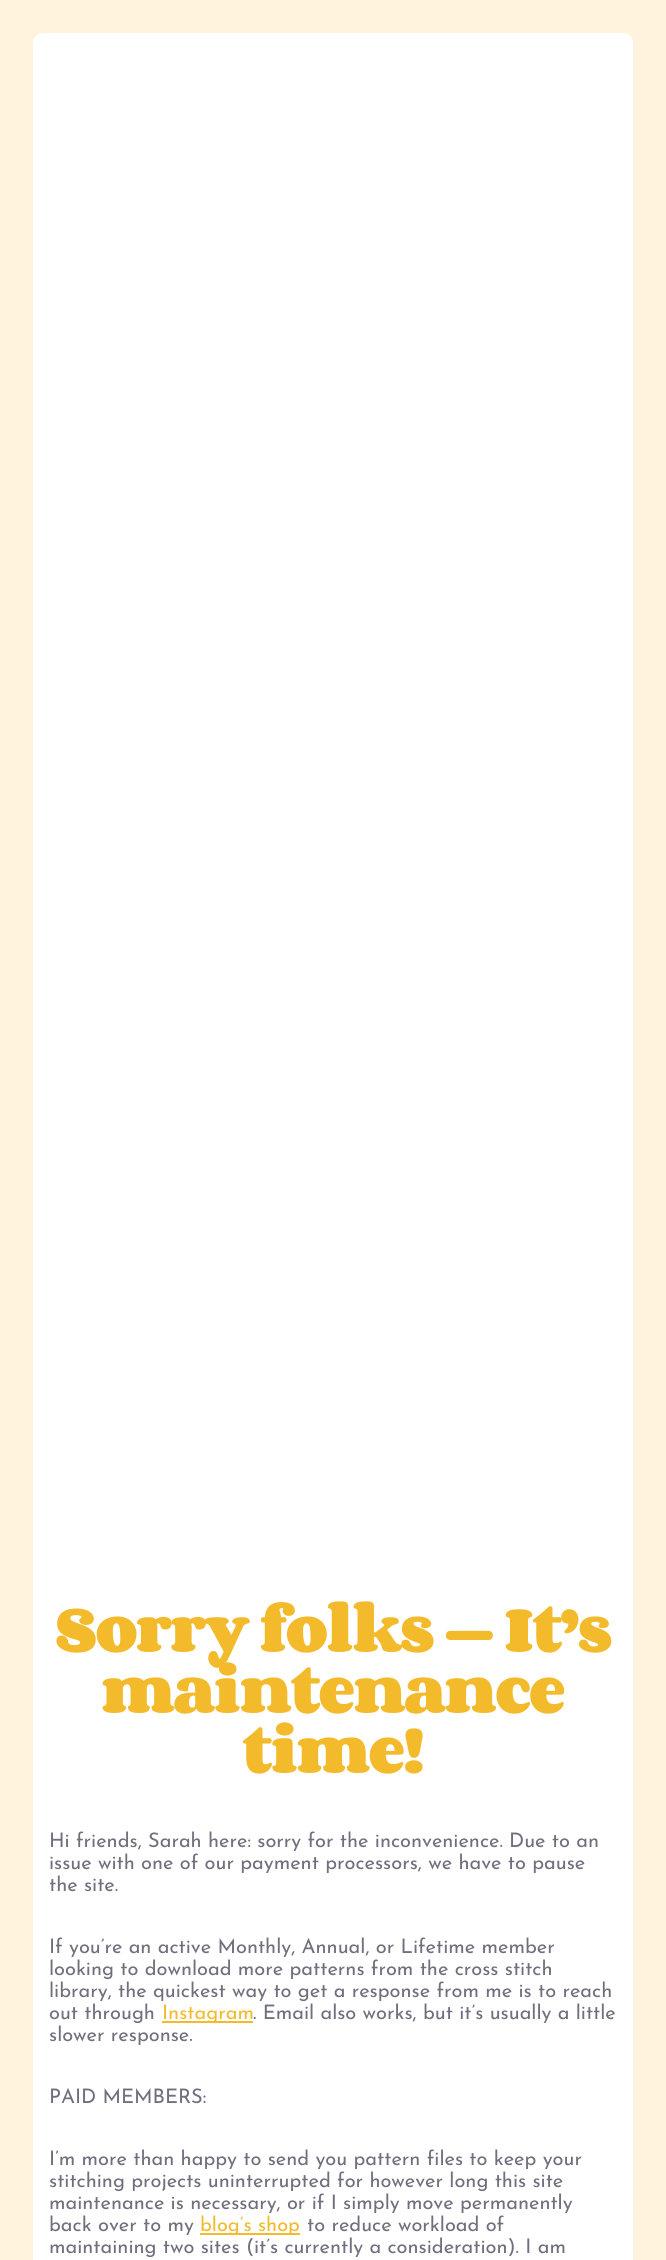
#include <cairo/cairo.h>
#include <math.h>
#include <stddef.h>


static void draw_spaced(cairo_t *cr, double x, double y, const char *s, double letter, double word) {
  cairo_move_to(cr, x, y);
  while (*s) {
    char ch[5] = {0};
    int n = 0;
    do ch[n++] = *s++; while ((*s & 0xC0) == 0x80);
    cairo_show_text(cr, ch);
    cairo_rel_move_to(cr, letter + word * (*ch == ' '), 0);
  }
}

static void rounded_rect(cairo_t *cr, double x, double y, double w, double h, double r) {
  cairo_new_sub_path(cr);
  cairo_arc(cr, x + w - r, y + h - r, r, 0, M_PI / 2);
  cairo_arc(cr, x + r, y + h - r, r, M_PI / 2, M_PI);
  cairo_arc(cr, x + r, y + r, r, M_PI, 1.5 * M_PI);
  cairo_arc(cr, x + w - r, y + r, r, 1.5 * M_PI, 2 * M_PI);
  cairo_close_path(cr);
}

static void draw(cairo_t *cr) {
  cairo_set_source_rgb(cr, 1, 243 / 255.0, 221 / 255.0);
  cairo_paint(cr);
  cairo_set_source_rgb(cr, 1, 1, 1);
  rounded_rect(cr, 33, 33, 600, 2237, 10);
  cairo_fill(cr);
  cairo_set_source_rgb(cr, 243 / 255.0, 186 / 255.0, 44 / 255.0);
  cairo_rectangle(cr, 162, 2021, 91, 2);
  cairo_fill(cr);
  cairo_rectangle(cr, 200, 2233, 100, 2);
  cairo_fill(cr);
  cairo_select_font_face(cr, "Corben", CAIRO_FONT_SLANT_NORMAL, CAIRO_FONT_WEIGHT_BOLD);
  cairo_set_font_size(cr, 55);
  draw_spaced(cr, 55, 1652, "Sorry folks — It’s", -1.75, 0);
  draw_spaced(cr, 101, 1713, "maintenance", -1.75, 0);
  draw_spaced(cr, 242, 1773, "time!", -1.75, 0);
  cairo_select_font_face(cr, "Josefin Sans", CAIRO_FONT_SLANT_NORMAL, CAIRO_FONT_WEIGHT_NORMAL);
  cairo_set_font_size(cr, 20);
  cairo_set_source_rgb(cr, 112 / 255.0, 111 / 255.0, 126 / 255.0);
  cairo_move_to(cr, 49, 1847);
  cairo_show_text(cr, "Hi friends, Sarah here: sorry for the inconvenience. Due to an");
  cairo_move_to(cr, 49, 1869);
  cairo_show_text(cr, "issue with one of our payment processors, we have to pause");
  cairo_move_to(cr, 49, 1891);
  cairo_show_text(cr, "the site.");
  cairo_move_to(cr, 49, 1953);
  cairo_show_text(cr, "If you’re an active Monthly, Annual, or Lifetime member");
  cairo_move_to(cr, 49, 1975);
  cairo_show_text(cr, "looking to download more patterns from the cross stitch");
  cairo_move_to(cr, 49, 1997);
  cairo_show_text(cr, "library, the quickest way to get a response from me is to reach");
  cairo_move_to(cr, 49, 2019);
  cairo_show_text(cr, "out through");
  cairo_set_source_rgb(cr, 243 / 255.0, 186 / 255.0, 44 / 255.0);
  cairo_move_to(cr, 162, 2019);
  cairo_show_text(cr, "Instagram");
  cairo_set_source_rgb(cr, 112 / 255.0, 111 / 255.0, 126 / 255.0);
  cairo_move_to(cr, 253, 2019);
  cairo_show_text(cr, ". Email also works, but it’s usually a little");
  cairo_move_to(cr, 49, 2041);
  cairo_show_text(cr, "slower response.");
  cairo_move_to(cr, 49, 2103);
  cairo_show_text(cr, "PAID MEMBERS:");
  cairo_move_to(cr, 49, 2165);
  cairo_show_text(cr, "I’m more than happy to send you pattern files to keep your");
  cairo_move_to(cr, 49, 2187);
  cairo_show_text(cr, "stitching projects uninterrupted for however long this site");
  cairo_move_to(cr, 49, 2209);
  cairo_show_text(cr, "maintenance is necessary, or if I simply move permanently");
  cairo_move_to(cr, 49, 2231);
  cairo_show_text(cr, "back over to my");
  cairo_set_source_rgb(cr, 243 / 255.0, 186 / 255.0, 44 / 255.0);
  cairo_move_to(cr, 200, 2231);
  cairo_show_text(cr, "blog’s shop");
  cairo_set_source_rgb(cr, 112 / 255.0, 111 / 255.0, 126 / 255.0);
  cairo_move_to(cr, 307, 2231);
  cairo_show_text(cr, "to reduce workload of");
  cairo_move_to(cr, 49, 2253);
  cairo_show_text(cr, "maintaining two sites (it’s currently a consideration). I am");
}

int main(void) {
  cairo_surface_t *surface = cairo_image_surface_create(CAIRO_FORMAT_RGB24, 666, 2260);
  cairo_t *cr = cairo_create(surface);
  cairo_font_options_t *options = cairo_font_options_create();
  cairo_font_options_set_hint_metrics(options, CAIRO_HINT_METRICS_OFF);
  cairo_font_options_set_hint_style(options, CAIRO_HINT_STYLE_NONE);
  cairo_set_font_options(cr, options);
  cairo_set_miter_limit(cr, 4);
  draw(cr);
  cairo_surface_write_to_png(surface, "out.png");
  cairo_font_options_destroy(options);
  cairo_destroy(cr);
  cairo_surface_destroy(surface);
  return 0;
}
